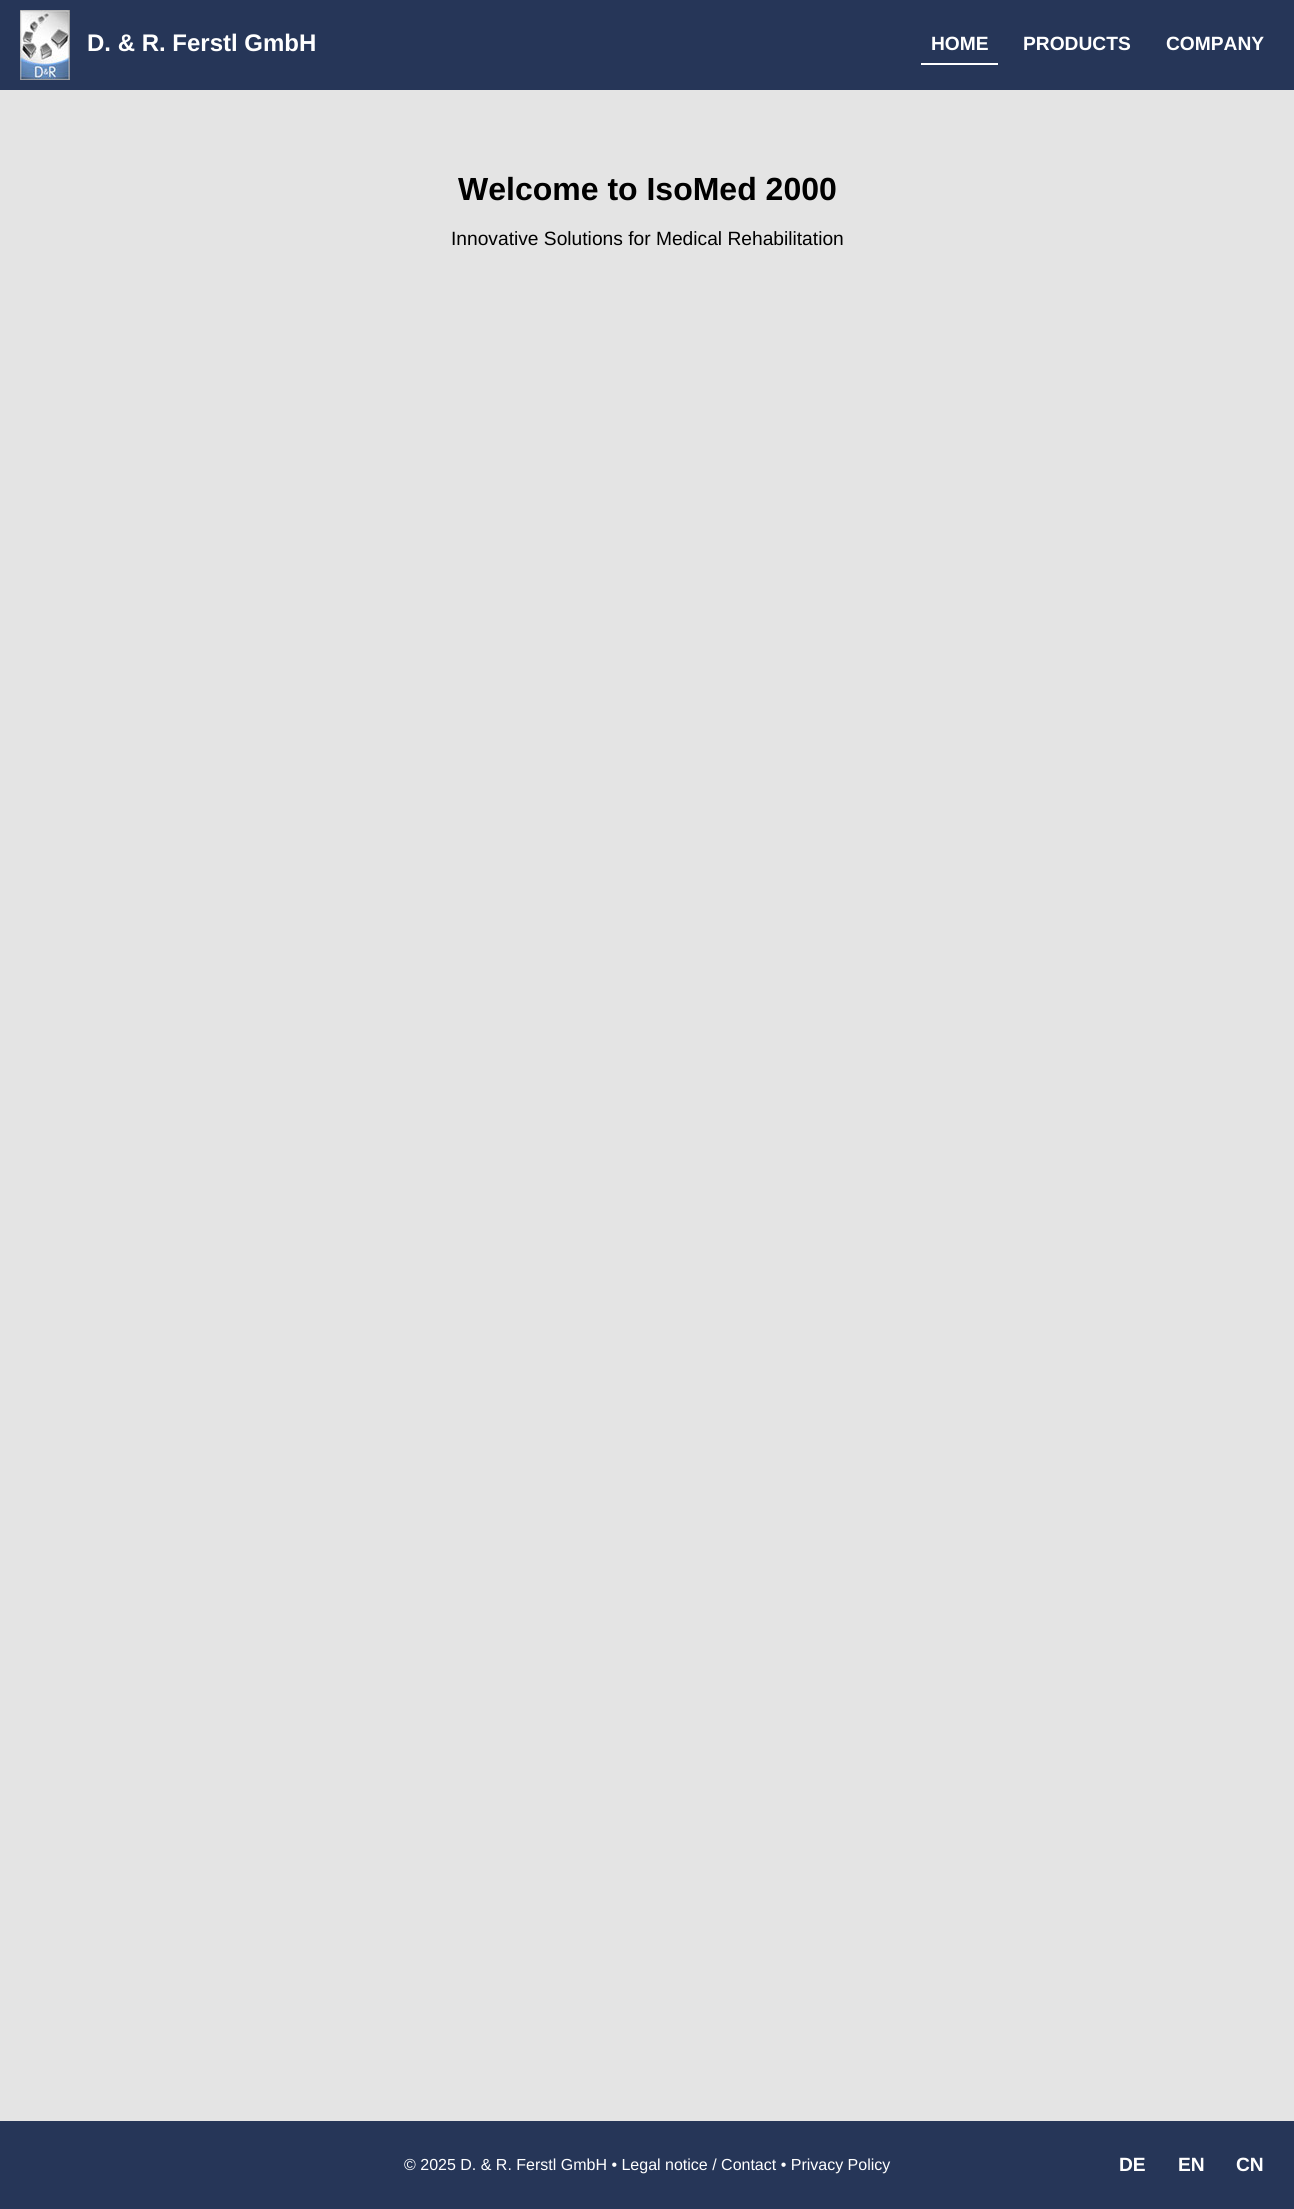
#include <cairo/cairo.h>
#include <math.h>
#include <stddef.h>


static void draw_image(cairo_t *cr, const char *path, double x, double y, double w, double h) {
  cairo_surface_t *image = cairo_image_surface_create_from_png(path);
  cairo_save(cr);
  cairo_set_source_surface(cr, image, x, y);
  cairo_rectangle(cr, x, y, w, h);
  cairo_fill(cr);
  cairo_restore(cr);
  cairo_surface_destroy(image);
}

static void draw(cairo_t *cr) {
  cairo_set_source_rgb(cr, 228 / 255.0, 228 / 255.0, 228 / 255.0);
  cairo_paint(cr);
  cairo_set_source_rgb(cr, 38 / 255.0, 54 / 255.0, 88 / 255.0);
  cairo_rectangle(cr, 0, 0, 1294, 90);
  cairo_fill(cr);
  draw_image(cr, "images/1.png", 20, 10, 50, 70);
  cairo_set_source_rgb(cr, 1, 1, 1);
  cairo_rectangle(cr, 921, 63, 77, 2);
  cairo_fill(cr);
  cairo_set_source_rgb(cr, 38 / 255.0, 54 / 255.0, 88 / 255.0);
  cairo_rectangle(cr, 0, 2121, 1294, 88);
  cairo_fill(cr);
  cairo_select_font_face(cr, "Liberation Sans", CAIRO_FONT_SLANT_NORMAL, CAIRO_FONT_WEIGHT_BOLD);
  cairo_set_font_size(cr, 24);
  cairo_set_source_rgb(cr, 1, 1, 1);
  cairo_move_to(cr, 87, 51);
  cairo_show_text(cr, "D. & R. Ferstl GmbH");
  cairo_set_font_size(cr, 19.2);
  cairo_move_to(cr, 931, 50);
  cairo_show_text(cr, "HOME");
  cairo_move_to(cr, 1023, 50);
  cairo_show_text(cr, "PRODUCTS");
  cairo_move_to(cr, 1166, 50);
  cairo_show_text(cr, "COMPANY");
  cairo_set_font_size(cr, 32);
  cairo_set_source_rgb(cr, 0, 0, 0);
  cairo_move_to(cr, 458, 200);
  cairo_show_text(cr, "Welcome to IsoMed 2000");
  cairo_select_font_face(cr, "Liberation Sans", CAIRO_FONT_SLANT_NORMAL, CAIRO_FONT_WEIGHT_NORMAL);
  cairo_set_font_size(cr, 19.2);
  cairo_move_to(cr, 451, 245);
  cairo_show_text(cr, "Innovative Solutions for Medical Rehabilitation");
  cairo_set_font_size(cr, 16);
  cairo_set_source_rgb(cr, 1, 1, 1);
  cairo_move_to(cr, 404, 2170);
  cairo_show_text(cr, "© 2025 D. & R. Ferstl GmbH • Legal notice / Contact • Privacy Policy");
  cairo_select_font_face(cr, "Liberation Sans", CAIRO_FONT_SLANT_NORMAL, CAIRO_FONT_WEIGHT_BOLD);
  cairo_set_font_size(cr, 19.2);
  cairo_move_to(cr, 1119, 2171);
  cairo_show_text(cr, "DE");
  cairo_move_to(cr, 1178, 2171);
  cairo_show_text(cr, "EN");
  cairo_move_to(cr, 1236, 2171);
  cairo_show_text(cr, "CN");
}

int main(void) {
  cairo_surface_t *surface = cairo_image_surface_create(CAIRO_FORMAT_RGB24, 1294, 2209);
  cairo_t *cr = cairo_create(surface);
  cairo_font_options_t *options = cairo_font_options_create();
  cairo_font_options_set_hint_metrics(options, CAIRO_HINT_METRICS_OFF);
  cairo_font_options_set_hint_style(options, CAIRO_HINT_STYLE_NONE);
  cairo_set_font_options(cr, options);
  cairo_set_miter_limit(cr, 4);
  draw(cr);
  cairo_surface_write_to_png(surface, "out.png");
  cairo_font_options_destroy(options);
  cairo_destroy(cr);
  cairo_surface_destroy(surface);
  return 0;
}
